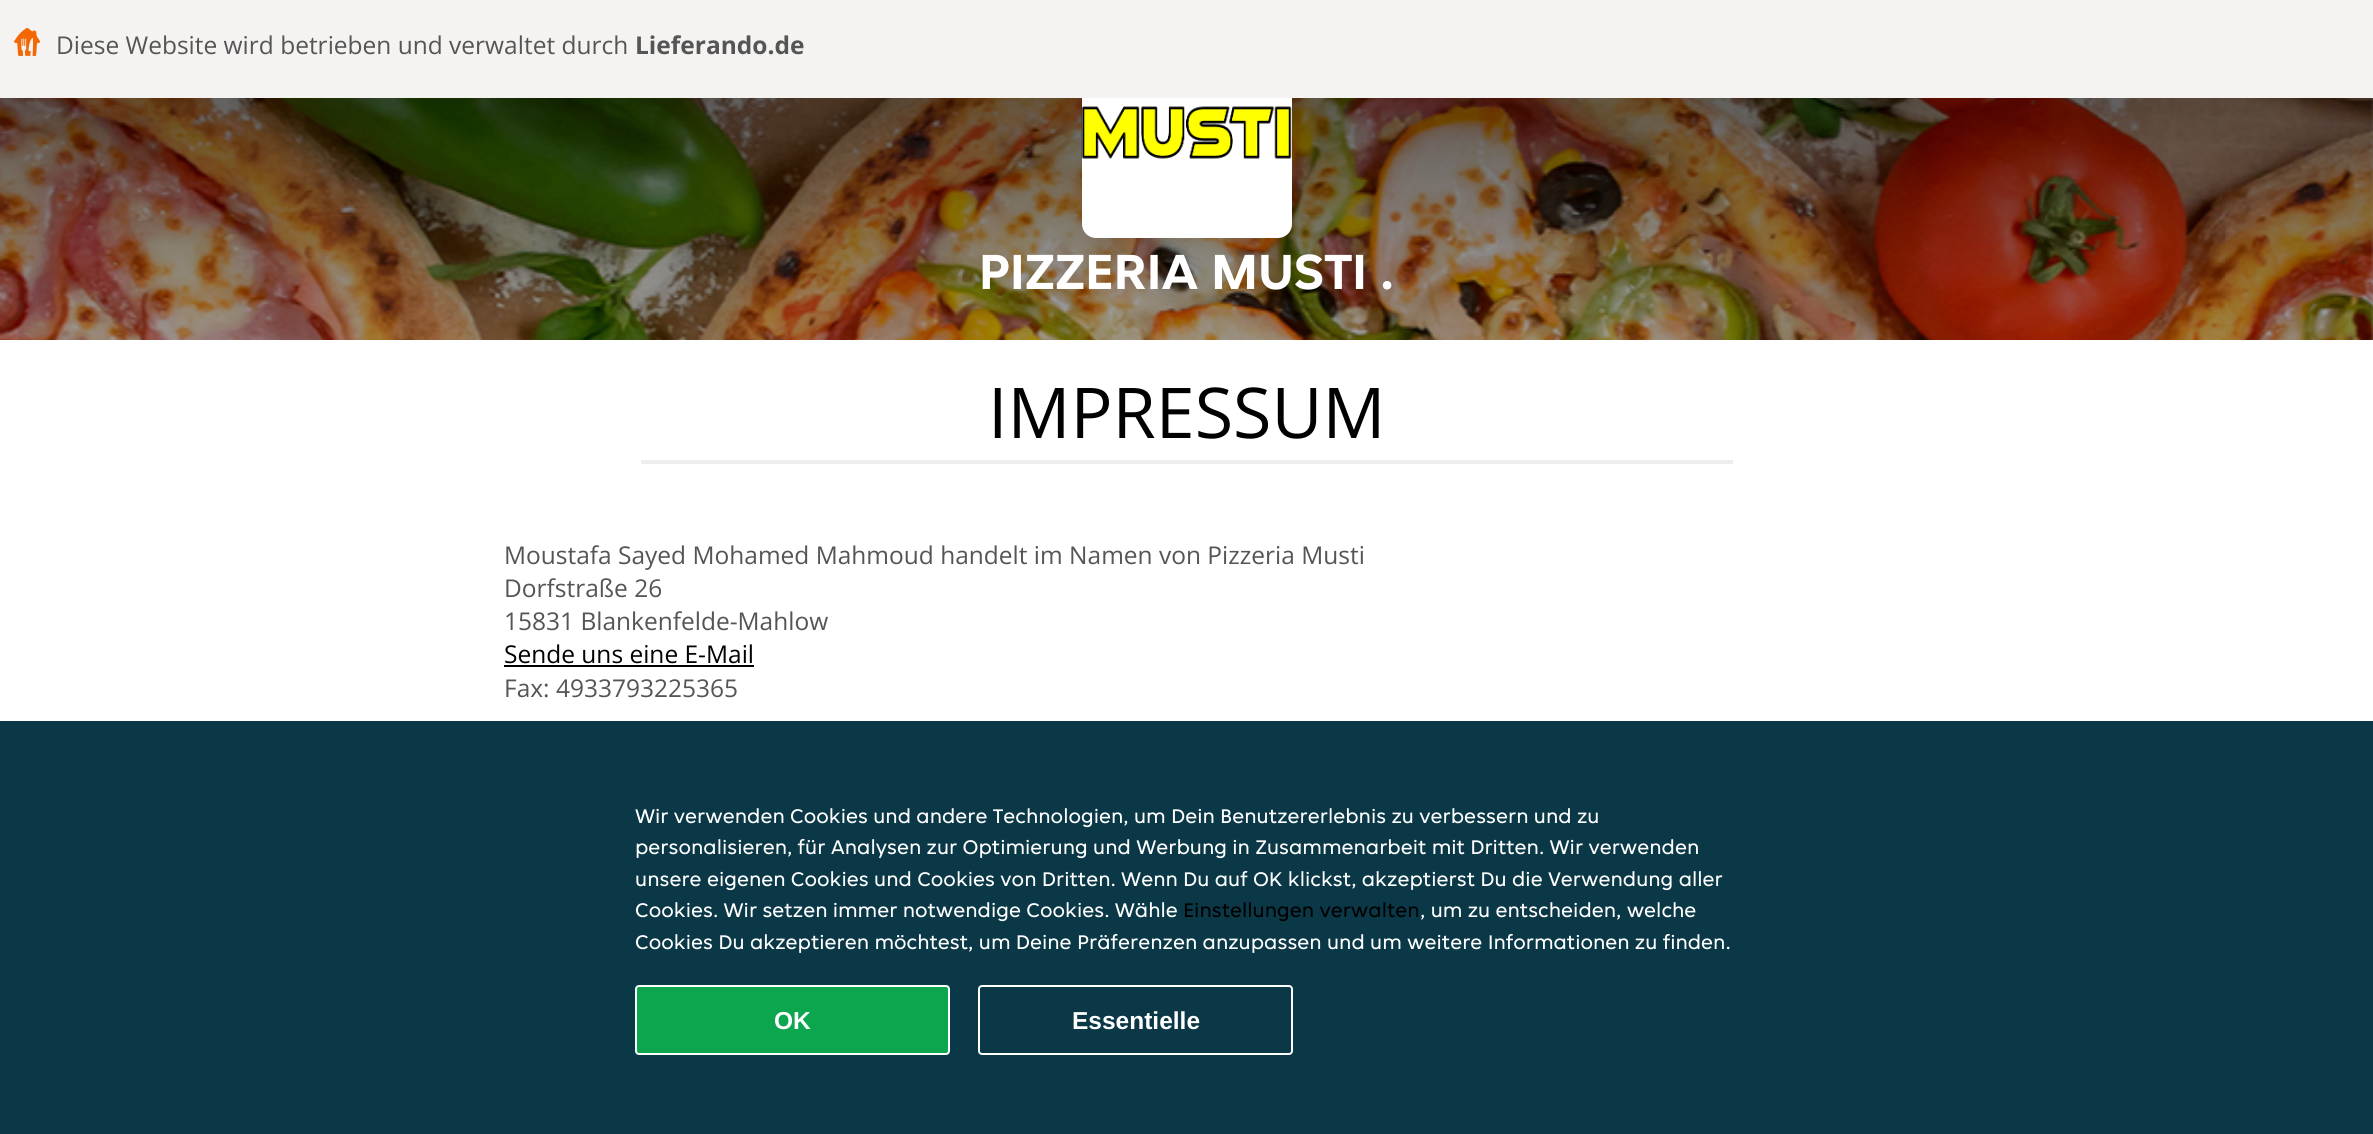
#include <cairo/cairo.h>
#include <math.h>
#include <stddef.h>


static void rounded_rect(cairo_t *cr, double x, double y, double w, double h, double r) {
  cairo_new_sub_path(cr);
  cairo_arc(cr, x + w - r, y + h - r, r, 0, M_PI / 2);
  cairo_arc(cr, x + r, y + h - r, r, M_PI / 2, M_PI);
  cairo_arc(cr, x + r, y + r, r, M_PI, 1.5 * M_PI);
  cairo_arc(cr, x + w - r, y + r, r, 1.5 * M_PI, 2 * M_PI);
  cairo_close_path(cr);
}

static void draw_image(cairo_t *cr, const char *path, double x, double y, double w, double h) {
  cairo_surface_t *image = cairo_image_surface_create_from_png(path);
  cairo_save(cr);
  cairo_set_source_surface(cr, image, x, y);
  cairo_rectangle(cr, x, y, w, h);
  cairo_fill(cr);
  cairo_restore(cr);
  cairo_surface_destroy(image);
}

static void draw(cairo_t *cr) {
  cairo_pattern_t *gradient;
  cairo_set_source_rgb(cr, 1, 1, 1);
  cairo_paint(cr);
  draw_image(cr, "images/2.png", 0, 98, 2373, 242);
  gradient = cairo_pattern_create_linear(1187, 0, 1187, 875);
  cairo_pattern_add_color_stop_rgba(gradient, 0, 0, 0, 0, 0.7);
  cairo_pattern_add_color_stop_rgba(gradient, 0.33, 0, 0, 0, 0.4);
  cairo_pattern_add_color_stop_rgba(gradient, 0.67, 0, 0, 0, 0.2);
  cairo_pattern_add_color_stop_rgba(gradient, 1, 0, 0, 0, 0);
  cairo_set_source(cr, gradient);
  cairo_pattern_destroy(gradient);
  cairo_rectangle(cr, 0, 98, 2373, 242);
  cairo_fill(cr);
  cairo_set_source_rgb(cr, 1, 1, 1);
  rounded_rect(cr, 1082, 28, 210, 210, 14);
  cairo_fill(cr);
  cairo_set_source_rgb(cr, 245 / 255.0, 243 / 255.0, 241 / 255.0);
  cairo_rectangle(cr, 0, 0, 2373, 98);
  cairo_fill(cr);
  draw_image(cr, "images/1.png", 14, 28, 27, 28);
  draw_image(cr, "images/3.png", 1081, 106, 211, 53);
  cairo_set_source_rgb(cr, 238 / 255.0, 238 / 255.0, 238 / 255.0);
  cairo_rectangle(cr, 641, 460, 1092, 4);
  cairo_fill(cr);
  cairo_set_source_rgb(cr, 0, 0, 0);
  cairo_rectangle(cr, 504, 665, 250, 2);
  cairo_fill(cr);
  cairo_set_source_rgb(cr, 10 / 255.0, 56 / 255.0, 71 / 255.0);
  cairo_rectangle(cr, 0, 721, 2373, 413);
  cairo_fill(cr);
  cairo_set_source_rgb(cr, 12 / 255.0, 166 / 255.0, 79 / 255.0);
  rounded_rect(cr, 636, 986, 313, 68, 3);
  cairo_fill_preserve(cr);
  cairo_set_source_rgb(cr, 1, 1, 1);
  cairo_stroke(cr);
  rounded_rect(cr, 979, 986, 313, 68, 3);
  cairo_stroke(cr);
  cairo_select_font_face(cr, "Open Sans", CAIRO_FONT_SLANT_NORMAL, CAIRO_FONT_WEIGHT_NORMAL);
  cairo_set_font_size(cr, 24.5);
  cairo_set_source_rgb(cr, 85 / 255.0, 85 / 255.0, 85 / 255.0);
  cairo_move_to(cr, 56, 54);
  cairo_show_text(cr, "Diese Website wird betrieben und verwaltet durch");
  cairo_select_font_face(cr, "Open Sans", CAIRO_FONT_SLANT_NORMAL, CAIRO_FONT_WEIGHT_BOLD);
  cairo_move_to(cr, 635, 54);
  cairo_show_text(cr, "Lieferando.de");
  cairo_select_font_face(cr, "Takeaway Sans", CAIRO_FONT_SLANT_NORMAL, CAIRO_FONT_WEIGHT_BOLD);
  cairo_set_font_size(cr, 52.5);
  cairo_set_source_rgb(cr, 1, 1, 1);
  cairo_move_to(cr, 979, 289);
  cairo_show_text(cr, "PIZZERIA MUSTI .");
  cairo_select_font_face(cr, "Open Sans", CAIRO_FONT_SLANT_NORMAL, CAIRO_FONT_WEIGHT_NORMAL);
  cairo_set_font_size(cr, 70);
  cairo_set_source_rgb(cr, 0, 0, 0);
  cairo_move_to(cr, 988, 438);
  cairo_show_text(cr, "IMPRESSUM");
  cairo_set_font_size(cr, 24.5);
  cairo_set_source_rgb(cr, 85 / 255.0, 85 / 255.0, 85 / 255.0);
  cairo_move_to(cr, 504, 564);
  cairo_show_text(cr, "Moustafa Sayed Mohamed Mahmoud handelt im Namen von Pizzeria Musti");
  cairo_move_to(cr, 504, 597);
  cairo_show_text(cr, "Dorfstraße 26");
  cairo_move_to(cr, 504, 630);
  cairo_show_text(cr, "15831 Blankenfelde-Mahlow");
  cairo_set_source_rgb(cr, 0, 0, 0);
  cairo_move_to(cr, 504, 663);
  cairo_show_text(cr, "Sende uns eine E-Mail");
  cairo_set_source_rgb(cr, 85 / 255.0, 85 / 255.0, 85 / 255.0);
  cairo_move_to(cr, 504, 697);
  cairo_show_text(cr, "Fax: 4933793225365");
  cairo_select_font_face(cr, "Takeaway Sans", CAIRO_FONT_SLANT_NORMAL, CAIRO_FONT_WEIGHT_NORMAL);
  cairo_set_font_size(cr, 21);
  cairo_set_source_rgb(cr, 1, 1, 1);
  cairo_move_to(cr, 635, 823);
  cairo_show_text(cr, "Wir verwenden Cookies und andere Technologien, um Dein Benutzererlebnis zu verbessern und zu");
  cairo_move_to(cr, 635, 854);
  cairo_show_text(cr, "personalisieren, für Analysen zur Optimierung und Werbung in Zusammenarbeit mit Dritten. Wir verwenden");
  cairo_move_to(cr, 635, 886);
  cairo_show_text(cr, "unsere eigenen Cookies und Cookies von Dritten. Wenn Du auf OK klickst, akzeptierst Du die Verwendung aller");
  cairo_move_to(cr, 635, 917);
  cairo_show_text(cr, "Cookies. Wir setzen immer notwendige Cookies. Wähle");
  cairo_set_source_rgb(cr, 0, 0, 0);
  cairo_move_to(cr, 1183, 917);
  cairo_show_text(cr, "Einstellungen verwalten");
  cairo_set_source_rgb(cr, 1, 1, 1);
  cairo_move_to(cr, 1420, 917);
  cairo_show_text(cr, ", um zu entscheiden, welche");
  cairo_move_to(cr, 635, 949);
  cairo_show_text(cr, "Cookies Du akzeptieren möchtest, um Deine Präferenzen anzupassen und um weitere Informationen zu finden.");
  cairo_select_font_face(cr, "Liberation Sans", CAIRO_FONT_SLANT_NORMAL, CAIRO_FONT_WEIGHT_BOLD);
  cairo_set_font_size(cr, 24.5);
  cairo_move_to(cr, 774, 1029);
  cairo_show_text(cr, "OK");
  cairo_move_to(cr, 1072, 1029);
  cairo_show_text(cr, "Essentielle");
}

int main(void) {
  cairo_surface_t *surface = cairo_image_surface_create(CAIRO_FORMAT_RGB24, 2373, 1134);
  cairo_t *cr = cairo_create(surface);
  cairo_font_options_t *options = cairo_font_options_create();
  cairo_font_options_set_hint_metrics(options, CAIRO_HINT_METRICS_OFF);
  cairo_font_options_set_hint_style(options, CAIRO_HINT_STYLE_NONE);
  cairo_set_font_options(cr, options);
  cairo_set_miter_limit(cr, 4);
  draw(cr);
  cairo_surface_write_to_png(surface, "out.png");
  cairo_font_options_destroy(options);
  cairo_destroy(cr);
  cairo_surface_destroy(surface);
  return 0;
}
